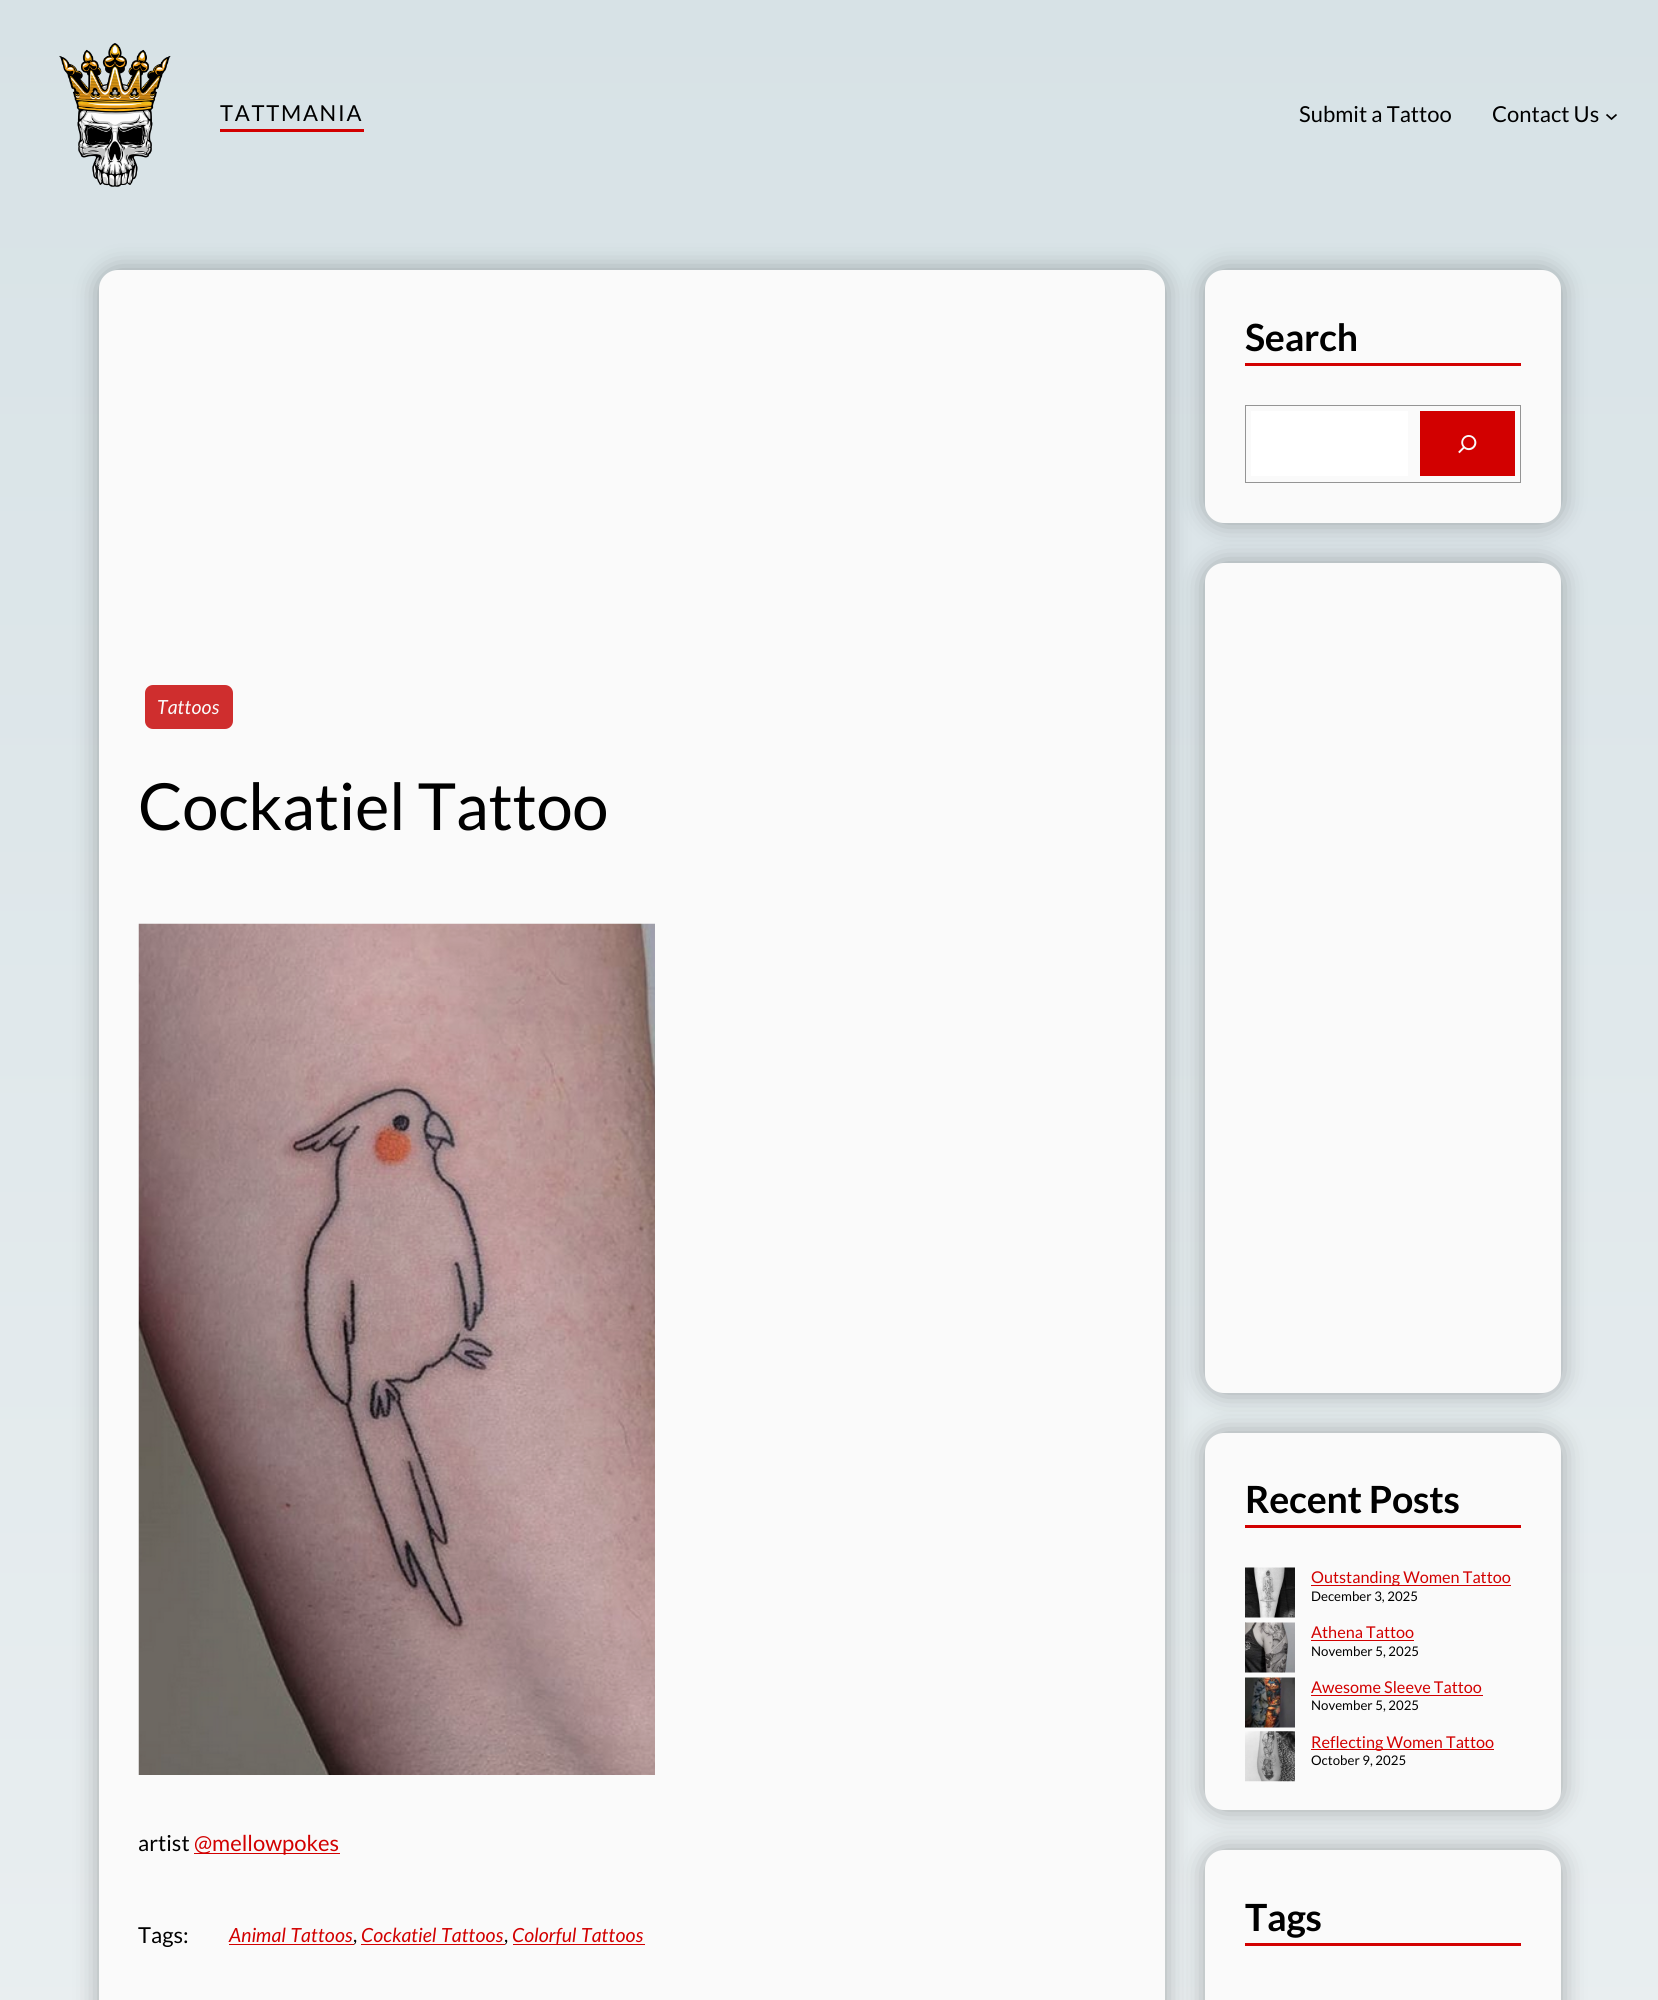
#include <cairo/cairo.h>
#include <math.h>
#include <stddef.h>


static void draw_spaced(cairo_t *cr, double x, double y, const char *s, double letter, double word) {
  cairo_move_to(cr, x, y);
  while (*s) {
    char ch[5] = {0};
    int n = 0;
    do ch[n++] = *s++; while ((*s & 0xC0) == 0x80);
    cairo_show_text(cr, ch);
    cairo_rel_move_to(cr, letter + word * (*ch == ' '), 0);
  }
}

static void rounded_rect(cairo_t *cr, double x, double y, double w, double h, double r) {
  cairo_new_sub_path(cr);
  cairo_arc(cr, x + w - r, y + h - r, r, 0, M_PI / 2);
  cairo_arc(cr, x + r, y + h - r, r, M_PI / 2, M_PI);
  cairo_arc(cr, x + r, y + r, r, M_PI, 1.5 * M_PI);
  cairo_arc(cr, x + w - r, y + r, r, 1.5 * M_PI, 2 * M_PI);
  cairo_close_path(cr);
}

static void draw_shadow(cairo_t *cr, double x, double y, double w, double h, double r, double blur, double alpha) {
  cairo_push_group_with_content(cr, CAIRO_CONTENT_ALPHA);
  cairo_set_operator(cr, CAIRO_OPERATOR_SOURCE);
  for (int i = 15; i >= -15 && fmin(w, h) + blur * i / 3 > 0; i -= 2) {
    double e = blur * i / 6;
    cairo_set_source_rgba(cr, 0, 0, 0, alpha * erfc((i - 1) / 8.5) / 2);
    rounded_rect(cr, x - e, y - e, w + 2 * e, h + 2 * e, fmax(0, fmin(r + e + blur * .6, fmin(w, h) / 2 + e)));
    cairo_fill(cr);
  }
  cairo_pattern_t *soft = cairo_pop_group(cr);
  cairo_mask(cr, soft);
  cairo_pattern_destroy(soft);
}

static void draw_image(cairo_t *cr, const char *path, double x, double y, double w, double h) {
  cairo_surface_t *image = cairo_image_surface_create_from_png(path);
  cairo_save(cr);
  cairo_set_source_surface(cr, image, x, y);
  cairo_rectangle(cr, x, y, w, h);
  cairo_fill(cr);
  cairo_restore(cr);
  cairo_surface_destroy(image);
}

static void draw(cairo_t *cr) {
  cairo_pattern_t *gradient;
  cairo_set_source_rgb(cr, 1, 1, 1);
  cairo_paint(cr);
  gradient = cairo_pattern_create_linear(829, 0, 829, 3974);
  cairo_pattern_add_color_stop_rgba(gradient, 0, 215 / 255.0, 226 / 255.0, 230 / 255.0, 1);
  cairo_pattern_add_color_stop_rgba(gradient, 1, 250 / 255.0, 250 / 255.0, 250 / 255.0, 1);
  cairo_set_source(cr, gradient);
  cairo_pattern_destroy(gradient);
  cairo_rectangle(cr, 0, 0, 1658, 2000);
  cairo_fill(cr);
  draw_image(cr, "images/1.png", 59, 43, 112, 144);
  cairo_set_source_rgb(cr, 210 / 255.0, 0, 0);
  cairo_rectangle(cr, 220, 129, 144, 3);
  cairo_fill(cr);
  cairo_new_path(cr);
  cairo_move_to(cr, 1606.5, 114.5);
  cairo_line_to(cr, 1611.5, 119);
  cairo_line_to(cr, 1616.5, 114.5);
  cairo_set_source_rgb(cr, 0, 0, 0);
  cairo_set_line_width(cr, 1.7);
  cairo_stroke(cr);
  cairo_set_source_rgb(cr, 0, 0, 0);
  draw_shadow(cr, 99, 270, 1066, 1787, 19, 12.5, 0.3);
  cairo_set_source_rgb(cr, 250 / 255.0, 250 / 255.0, 250 / 255.0);
  rounded_rect(cr, 99, 270, 1066, 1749, 19);
  cairo_fill(cr);
  cairo_set_source_rgb(cr, 207 / 255.0, 46 / 255.0, 46 / 255.0);
  rounded_rect(cr, 145, 685, 88, 44, 8);
  cairo_fill(cr);
  draw_image(cr, "images/2.png", 138, 923, 517, 852);
  cairo_set_source_rgb(cr, 210 / 255.0, 0, 0);
  cairo_rectangle(cr, 194, 1853, 146, 1);
  cairo_fill(cr);
  cairo_rectangle(cr, 229, 1944, 125, 1);
  cairo_fill(cr);
  cairo_rectangle(cr, 361, 1944, 144, 1);
  cairo_fill(cr);
  cairo_rectangle(cr, 513, 1944, 132, 1);
  cairo_fill(cr);
  cairo_set_source_rgb(cr, 0, 0, 0);
  draw_shadow(cr, 1205, 270, 356, 253, 19, 12.5, 0.3);
  cairo_set_source_rgb(cr, 250 / 255.0, 250 / 255.0, 250 / 255.0);
  rounded_rect(cr, 1205, 270, 356, 253, 19);
  cairo_fill(cr);
  cairo_set_source_rgb(cr, 210 / 255.0, 0, 0);
  cairo_rectangle(cr, 1245, 363, 276, 3);
  cairo_fill(cr);
  cairo_rectangle(cr, 1245.5, 405.5, 275, 77);
  cairo_set_source_rgb(cr, 148 / 255.0, 148 / 255.0, 148 / 255.0);
  cairo_set_line_width(cr, 1);
  cairo_stroke(cr);
  cairo_set_source_rgb(cr, 1, 1, 1);
  cairo_rectangle(cr, 1251, 411, 157, 65);
  cairo_fill(cr);
  cairo_set_source_rgb(cr, 210 / 255.0, 0, 0);
  cairo_rectangle(cr, 1420, 411, 95, 65);
  cairo_fill(cr);
  draw_image(cr, "images/3.png", 1458, 435, 19, 19);
  cairo_set_source_rgb(cr, 0, 0, 0);
  draw_shadow(cr, 1205, 563, 356, 830, 19, 12.5, 0.3);
  cairo_set_source_rgb(cr, 250 / 255.0, 250 / 255.0, 250 / 255.0);
  rounded_rect(cr, 1205, 563, 356, 830, 19);
  cairo_fill(cr);
  cairo_set_source_rgb(cr, 0, 0, 0);
  draw_shadow(cr, 1205, 1433, 356, 377, 19, 12.5, 0.3);
  cairo_set_source_rgb(cr, 250 / 255.0, 250 / 255.0, 250 / 255.0);
  rounded_rect(cr, 1205, 1433, 356, 377, 19);
  cairo_fill(cr);
  cairo_set_source_rgb(cr, 210 / 255.0, 0, 0);
  cairo_rectangle(cr, 1245, 1525, 276, 3);
  cairo_fill(cr);
  draw_image(cr, "images/4.png", 1245, 1567, 50, 51);
  cairo_rectangle(cr, 1311, 1585, 200, 1);
  cairo_fill(cr);
  draw_image(cr, "images/5.png", 1245, 1622, 50, 51);
  cairo_rectangle(cr, 1311, 1640, 103, 1);
  cairo_fill(cr);
  draw_image(cr, "images/6.png", 1245, 1677, 50, 51);
  cairo_rectangle(cr, 1311, 1695, 172, 1);
  cairo_fill(cr);
  draw_image(cr, "images/7.png", 1245, 1731, 50, 51);
  cairo_rectangle(cr, 1311, 1749, 183, 1);
  cairo_fill(cr);
  cairo_set_source_rgb(cr, 0, 0, 0);
  draw_shadow(cr, 1205, 1850, 356, 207, 19, 12.5, 0.3);
  cairo_set_source_rgb(cr, 250 / 255.0, 250 / 255.0, 250 / 255.0);
  rounded_rect(cr, 1205, 1850, 356, 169, 19);
  cairo_fill(cr);
  cairo_set_source_rgb(cr, 210 / 255.0, 0, 0);
  cairo_rectangle(cr, 1245, 1943, 276, 3);
  cairo_fill(cr);
  cairo_select_font_face(cr, "Lato", CAIRO_FONT_SLANT_NORMAL, CAIRO_FONT_WEIGHT_NORMAL);
  cairo_set_font_size(cr, 22);
  cairo_set_source_rgb(cr, 0, 0, 0);
  draw_spaced(cr, 220, 121, "TATTMANIA", 1.75, 0);
  cairo_move_to(cr, 1299, 122);
  cairo_show_text(cr, "Submit a Tattoo");
  cairo_move_to(cr, 1492, 122);
  cairo_show_text(cr, "Contact Us");
  cairo_select_font_face(cr, "Lato", CAIRO_FONT_SLANT_ITALIC, CAIRO_FONT_WEIGHT_NORMAL);
  cairo_set_font_size(cr, 19.5);
  cairo_set_source_rgb(cr, 250 / 255.0, 250 / 255.0, 250 / 255.0);
  cairo_move_to(cr, 157, 714);
  cairo_show_text(cr, "Tattoos");
  cairo_select_font_face(cr, "Lato", CAIRO_FONT_SLANT_NORMAL, CAIRO_FONT_WEIGHT_NORMAL);
  cairo_set_font_size(cr, 65);
  cairo_set_source_rgb(cr, 0, 0, 0);
  draw_spaced(cr, 138, 830, "Cockatiel Tattoo", -0.25, 0);
  cairo_set_font_size(cr, 22);
  cairo_move_to(cr, 138, 1851);
  cairo_show_text(cr, "artist");
  cairo_set_source_rgb(cr, 210 / 255.0, 0, 0);
  cairo_move_to(cr, 194, 1851);
  cairo_show_text(cr, "@mellowpokes");
  cairo_set_source_rgb(cr, 0, 0, 0);
  cairo_move_to(cr, 138, 1943);
  cairo_show_text(cr, "Tags:");
  cairo_select_font_face(cr, "Lato", CAIRO_FONT_SLANT_ITALIC, CAIRO_FONT_WEIGHT_NORMAL);
  cairo_set_font_size(cr, 19.5);
  cairo_set_source_rgb(cr, 210 / 255.0, 0, 0);
  cairo_move_to(cr, 229, 1942);
  cairo_show_text(cr, "Animal Tattoos");
  cairo_select_font_face(cr, "Lato", CAIRO_FONT_SLANT_NORMAL, CAIRO_FONT_WEIGHT_NORMAL);
  cairo_set_source_rgb(cr, 0, 0, 0);
  cairo_move_to(cr, 353, 1942);
  cairo_show_text(cr, ",");
  cairo_select_font_face(cr, "Lato", CAIRO_FONT_SLANT_ITALIC, CAIRO_FONT_WEIGHT_NORMAL);
  cairo_set_source_rgb(cr, 210 / 255.0, 0, 0);
  cairo_move_to(cr, 361, 1942);
  cairo_show_text(cr, "Cockatiel Tattoos");
  cairo_select_font_face(cr, "Lato", CAIRO_FONT_SLANT_NORMAL, CAIRO_FONT_WEIGHT_NORMAL);
  cairo_set_source_rgb(cr, 0, 0, 0);
  cairo_move_to(cr, 504, 1942);
  cairo_show_text(cr, ",");
  cairo_select_font_face(cr, "Lato", CAIRO_FONT_SLANT_ITALIC, CAIRO_FONT_WEIGHT_NORMAL);
  cairo_set_source_rgb(cr, 210 / 255.0, 0, 0);
  cairo_move_to(cr, 512, 1942);
  cairo_show_text(cr, "Colorful Tattoos");
  cairo_select_font_face(cr, "Lato", CAIRO_FONT_SLANT_NORMAL, CAIRO_FONT_WEIGHT_BOLD);
  cairo_set_font_size(cr, 37.5);
  cairo_set_source_rgb(cr, 0, 0, 0);
  draw_spaced(cr, 1245, 351, "Search", -0.25, 0);
  draw_spaced(cr, 1245, 1513, "Recent Posts", -0.25, 0);
  cairo_select_font_face(cr, "Lato", CAIRO_FONT_SLANT_NORMAL, CAIRO_FONT_WEIGHT_NORMAL);
  cairo_set_font_size(cr, 16.25);
  cairo_set_source_rgb(cr, 210 / 255.0, 0, 0);
  cairo_move_to(cr, 1311, 1583);
  cairo_show_text(cr, "Outstanding Women Tattoo");
  cairo_set_font_size(cr, 13.25);
  cairo_set_source_rgb(cr, 0, 0, 0);
  cairo_move_to(cr, 1311, 1601);
  cairo_show_text(cr, "December 3, 2025");
  cairo_set_font_size(cr, 16.25);
  cairo_set_source_rgb(cr, 210 / 255.0, 0, 0);
  cairo_move_to(cr, 1311, 1638);
  cairo_show_text(cr, "Athena Tattoo");
  cairo_set_font_size(cr, 13.25);
  cairo_set_source_rgb(cr, 0, 0, 0);
  cairo_move_to(cr, 1311, 1656);
  cairo_show_text(cr, "November 5, 2025");
  cairo_set_font_size(cr, 16.25);
  cairo_set_source_rgb(cr, 210 / 255.0, 0, 0);
  cairo_move_to(cr, 1311, 1693);
  cairo_show_text(cr, "Awesome Sleeve Tattoo");
  cairo_set_font_size(cr, 13.25);
  cairo_set_source_rgb(cr, 0, 0, 0);
  cairo_move_to(cr, 1311, 1710);
  cairo_show_text(cr, "November 5, 2025");
  cairo_set_font_size(cr, 16.25);
  cairo_set_source_rgb(cr, 210 / 255.0, 0, 0);
  cairo_move_to(cr, 1311, 1748);
  cairo_show_text(cr, "Reflecting Women Tattoo");
  cairo_set_font_size(cr, 13.25);
  cairo_set_source_rgb(cr, 0, 0, 0);
  cairo_move_to(cr, 1311, 1765);
  cairo_show_text(cr, "October 9, 2025");
  cairo_select_font_face(cr, "Lato", CAIRO_FONT_SLANT_NORMAL, CAIRO_FONT_WEIGHT_BOLD);
  cairo_set_font_size(cr, 37.5);
  draw_spaced(cr, 1245, 1931, "Tags", -0.25, 0);
}

int main(void) {
  cairo_surface_t *surface = cairo_image_surface_create(CAIRO_FORMAT_RGB24, 1658, 2000);
  cairo_t *cr = cairo_create(surface);
  cairo_font_options_t *options = cairo_font_options_create();
  cairo_font_options_set_hint_metrics(options, CAIRO_HINT_METRICS_OFF);
  cairo_font_options_set_hint_style(options, CAIRO_HINT_STYLE_NONE);
  cairo_set_font_options(cr, options);
  cairo_set_miter_limit(cr, 4);
  draw(cr);
  cairo_surface_write_to_png(surface, "out.png");
  cairo_font_options_destroy(options);
  cairo_destroy(cr);
  cairo_surface_destroy(surface);
  return 0;
}
